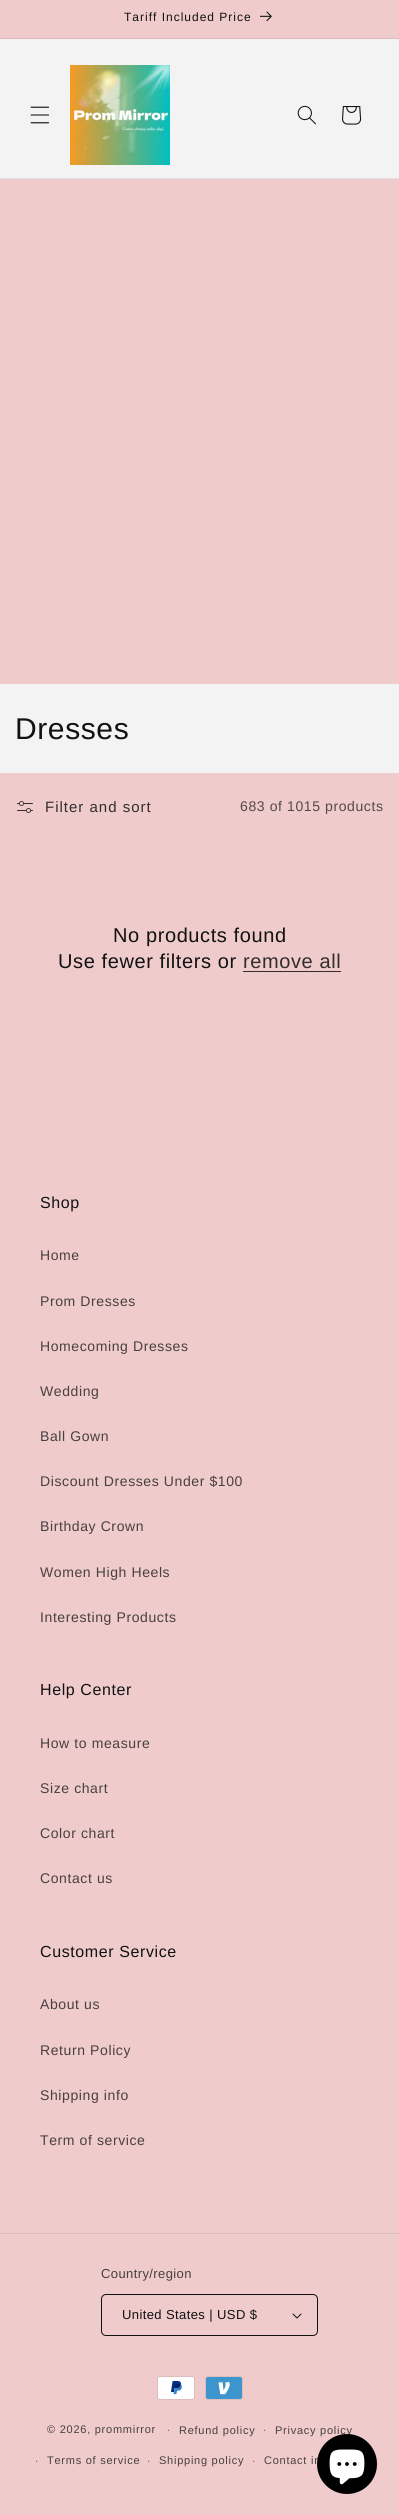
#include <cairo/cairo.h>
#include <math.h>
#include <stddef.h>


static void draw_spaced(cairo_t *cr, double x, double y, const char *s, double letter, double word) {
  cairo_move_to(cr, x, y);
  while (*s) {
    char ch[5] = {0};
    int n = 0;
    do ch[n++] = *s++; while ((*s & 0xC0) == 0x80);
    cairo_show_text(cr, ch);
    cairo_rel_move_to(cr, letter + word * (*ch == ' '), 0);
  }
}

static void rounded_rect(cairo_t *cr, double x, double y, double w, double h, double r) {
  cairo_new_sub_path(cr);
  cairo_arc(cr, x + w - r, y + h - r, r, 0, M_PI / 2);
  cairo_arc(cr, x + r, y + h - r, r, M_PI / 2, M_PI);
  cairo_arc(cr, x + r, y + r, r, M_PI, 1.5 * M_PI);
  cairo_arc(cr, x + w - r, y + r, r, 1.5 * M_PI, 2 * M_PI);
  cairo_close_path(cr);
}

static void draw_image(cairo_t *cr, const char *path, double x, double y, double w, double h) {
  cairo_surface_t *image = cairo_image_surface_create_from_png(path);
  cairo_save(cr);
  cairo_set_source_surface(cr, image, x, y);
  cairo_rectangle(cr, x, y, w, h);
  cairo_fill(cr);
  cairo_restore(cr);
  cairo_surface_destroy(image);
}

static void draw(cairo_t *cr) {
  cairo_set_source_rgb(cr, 239 / 255.0, 203 / 255.0, 203 / 255.0);
  cairo_paint(cr);
  cairo_set_source_rgb(cr, 221 / 255.0, 188 / 255.0, 188 / 255.0);
  cairo_rectangle(cr, 0, 38, 399, 1);
  cairo_fill(cr);
  draw_image(cr, "images/1.png", 260, 11, 12, 11);
  cairo_set_source_rgb(cr, 243 / 255.0, 243 / 255.0, 243 / 255.0);
  cairo_rectangle(cr, 0, 39, 399, 139);
  cairo_fill(cr);
  cairo_set_source_rgb(cr, 225 / 255.0, 225 / 255.0, 225 / 255.0);
  cairo_rectangle(cr, 0, 178, 399, 1);
  cairo_fill(cr);
  draw_image(cr, "images/2.png", 30, 106, 20, 18);
  draw_image(cr, "images/3.png", 70, 65, 100, 100);
  draw_image(cr, "images/4.png", 297, 105, 19, 20);
  draw_image(cr, "images/5.png", 342, 106, 20, 19);
  cairo_set_source_rgb(cr, 243 / 255.0, 243 / 255.0, 243 / 255.0);
  cairo_rectangle(cr, 0, 684, 399, 89);
  cairo_fill(cr);
  draw_image(cr, "images/6.png", 17, 801, 16, 12);
  cairo_set_source_rgb(cr, 51 / 255.0, 46 / 255.0, 46 / 255.0);
  cairo_rectangle(cr, 243, 971, 98, 1);
  cairo_fill(cr);
  cairo_set_source_rgb(cr, 221 / 255.0, 188 / 255.0, 188 / 255.0);
  cairo_rectangle(cr, 0, 2233, 399, 1);
  cairo_fill(cr);
  draw_image(cr, "images/7.png", 292, 2313, 10, 6);
  rounded_rect(cr, 101.5, 2294.5, 216, 41, 4.5);
  cairo_set_source_rgb(cr, 18 / 255.0, 18 / 255.0, 18 / 255.0);
  cairo_set_line_width(cr, 1);
  cairo_stroke(cr);
  draw_image(cr, "images/8.png", 157, 2376, 38, 24);
  draw_image(cr, "images/9.png", 205, 2376, 38, 24);
  cairo_select_font_face(cr, "Arimo", CAIRO_FONT_SLANT_NORMAL, CAIRO_FONT_WEIGHT_NORMAL);
  cairo_set_font_size(cr, 12);
  draw_spaced(cr, 124, 21, "Tariff Included Price", 1, 0);
  cairo_set_font_size(cr, 30);
  draw_spaced(cr, 15, 739, "Dresses", 0.6, 0);
  cairo_set_font_size(cr, 15);
  cairo_set_source_rgb(cr, 51 / 255.0, 46 / 255.0, 46 / 255.0);
  draw_spaced(cr, 45, 812, "Filter and sort", 1, 0);
  cairo_set_font_size(cr, 14);
  cairo_set_source_rgb(cr, 84 / 255.0, 74 / 255.0, 74 / 255.0);
  draw_spaced(cr, 240, 811, "683 of 1015 products", 0.6, 0);
  cairo_set_font_size(cr, 20);
  cairo_set_source_rgb(cr, 18 / 255.0, 18 / 255.0, 18 / 255.0);
  draw_spaced(cr, 113, 942, "No products found", 0.6, 0);
  draw_spaced(cr, 58, 968, "Use fewer filters or", 0.6, 0);
  cairo_set_source_rgb(cr, 51 / 255.0, 46 / 255.0, 46 / 255.0);
  draw_spaced(cr, 243, 968, "remove all", 0.6, 0);
  cairo_set_font_size(cr, 16);
  cairo_set_source_rgb(cr, 18 / 255.0, 18 / 255.0, 18 / 255.0);
  draw_spaced(cr, 40, 1208, "Shop", 0.6, 0);
  cairo_set_font_size(cr, 14);
  cairo_set_source_rgb(cr, 73 / 255.0, 64 / 255.0, 64 / 255.0);
  draw_spaced(cr, 40, 1260, "Home", 0.6, 0);
  draw_spaced(cr, 40, 1306, "Prom Dresses", 0.6, 0);
  draw_spaced(cr, 40, 1351, "Homecoming Dresses", 0.6, 0);
  draw_spaced(cr, 40, 1396, "Wedding", 0.6, 0);
  draw_spaced(cr, 40, 1441, "Ball Gown", 0.6, 0);
  draw_spaced(cr, 40, 1486, "Discount Dresses Under $100", 0.6, 0);
  draw_spaced(cr, 40, 1531, "Birthday Crown", 0.6, 0);
  draw_spaced(cr, 40, 1577, "Women High Heels", 0.6, 0);
  draw_spaced(cr, 40, 1622, "Interesting Products", 0.6, 0);
  cairo_set_font_size(cr, 16);
  cairo_set_source_rgb(cr, 18 / 255.0, 18 / 255.0, 18 / 255.0);
  draw_spaced(cr, 40, 1695, "Help Center", 0.6, 0);
  cairo_set_font_size(cr, 14);
  cairo_set_source_rgb(cr, 73 / 255.0, 64 / 255.0, 64 / 255.0);
  draw_spaced(cr, 40, 1748, "How to measure", 0.6, 0);
  draw_spaced(cr, 40, 1793, "Size chart", 0.6, 0);
  draw_spaced(cr, 40, 1838, "Color chart", 0.6, 0);
  draw_spaced(cr, 40, 1883, "Contact us", 0.6, 0);
  cairo_set_font_size(cr, 16);
  cairo_set_source_rgb(cr, 18 / 255.0, 18 / 255.0, 18 / 255.0);
  draw_spaced(cr, 40, 1957, "Customer Service", 0.6, 0);
  cairo_set_font_size(cr, 14);
  cairo_set_source_rgb(cr, 73 / 255.0, 64 / 255.0, 64 / 255.0);
  draw_spaced(cr, 40, 2009, "About us", 0.6, 0);
  draw_spaced(cr, 40, 2055, "Return Policy", 0.6, 0);
  draw_spaced(cr, 40, 2100, "Shipping info", 0.6, 0);
  draw_spaced(cr, 40, 2145, "Term of service", 0.6, 0);
  cairo_set_font_size(cr, 13);
  draw_spaced(cr, 101, 2278, "Country/region", 0.4, 0);
  cairo_set_source_rgb(cr, 18 / 255.0, 18 / 255.0, 18 / 255.0);
  draw_spaced(cr, 122, 2319, "United States | USD $", 0.4, 0);
  cairo_set_font_size(cr, 11);
  cairo_set_source_rgb(cr, 73 / 255.0, 64 / 255.0, 64 / 255.0);
  draw_spaced(cr, 47, 2433, "© 2026, prommirror", 0.75, 0);
  cairo_set_font_size(cr, 10);
  draw_spaced(cr, 167, 2433, "·", 0.75, 0);
  cairo_set_font_size(cr, 11);
  draw_spaced(cr, 179, 2434, "Refund policy", 0.75, 0);
  cairo_set_font_size(cr, 10);
  draw_spaced(cr, 263, 2433, "·", 0.75, 0);
  cairo_set_font_size(cr, 11);
  draw_spaced(cr, 275, 2434, "Privacy policy", 0.75, 0);
  cairo_set_font_size(cr, 10);
  draw_spaced(cr, 35, 2464, "·", 0.75, 0);
  cairo_set_font_size(cr, 11);
  draw_spaced(cr, 47, 2464, "Terms of service", 0.75, 0);
  cairo_set_font_size(cr, 10);
  draw_spaced(cr, 147, 2464, "·", 0.75, 0);
  cairo_set_font_size(cr, 11);
  draw_spaced(cr, 159, 2464, "Shipping policy", 0.75, 0);
  cairo_set_font_size(cr, 10);
  draw_spaced(cr, 252, 2464, "·", 0.75, 0);
  cairo_set_font_size(cr, 11);
  draw_spaced(cr, 264, 2464, "Contact in", 0.75, 0);
  cairo_set_source_rgb(cr, 0, 0, 0);
  cairo_new_path(cr);
  cairo_arc(cr, 347, 2464, 30, 0, 2 * M_PI);
  cairo_fill(cr);
  draw_image(cr, "images/10.png", 329, 2449, 36, 36);
}

int main(void) {
  cairo_surface_t *surface = cairo_image_surface_create(CAIRO_FORMAT_RGB24, 399, 2515);
  cairo_t *cr = cairo_create(surface);
  cairo_font_options_t *options = cairo_font_options_create();
  cairo_font_options_set_hint_metrics(options, CAIRO_HINT_METRICS_OFF);
  cairo_font_options_set_hint_style(options, CAIRO_HINT_STYLE_NONE);
  cairo_set_font_options(cr, options);
  cairo_set_miter_limit(cr, 4);
  draw(cr);
  cairo_surface_write_to_png(surface, "out.png");
  cairo_font_options_destroy(options);
  cairo_destroy(cr);
  cairo_surface_destroy(surface);
  return 0;
}
